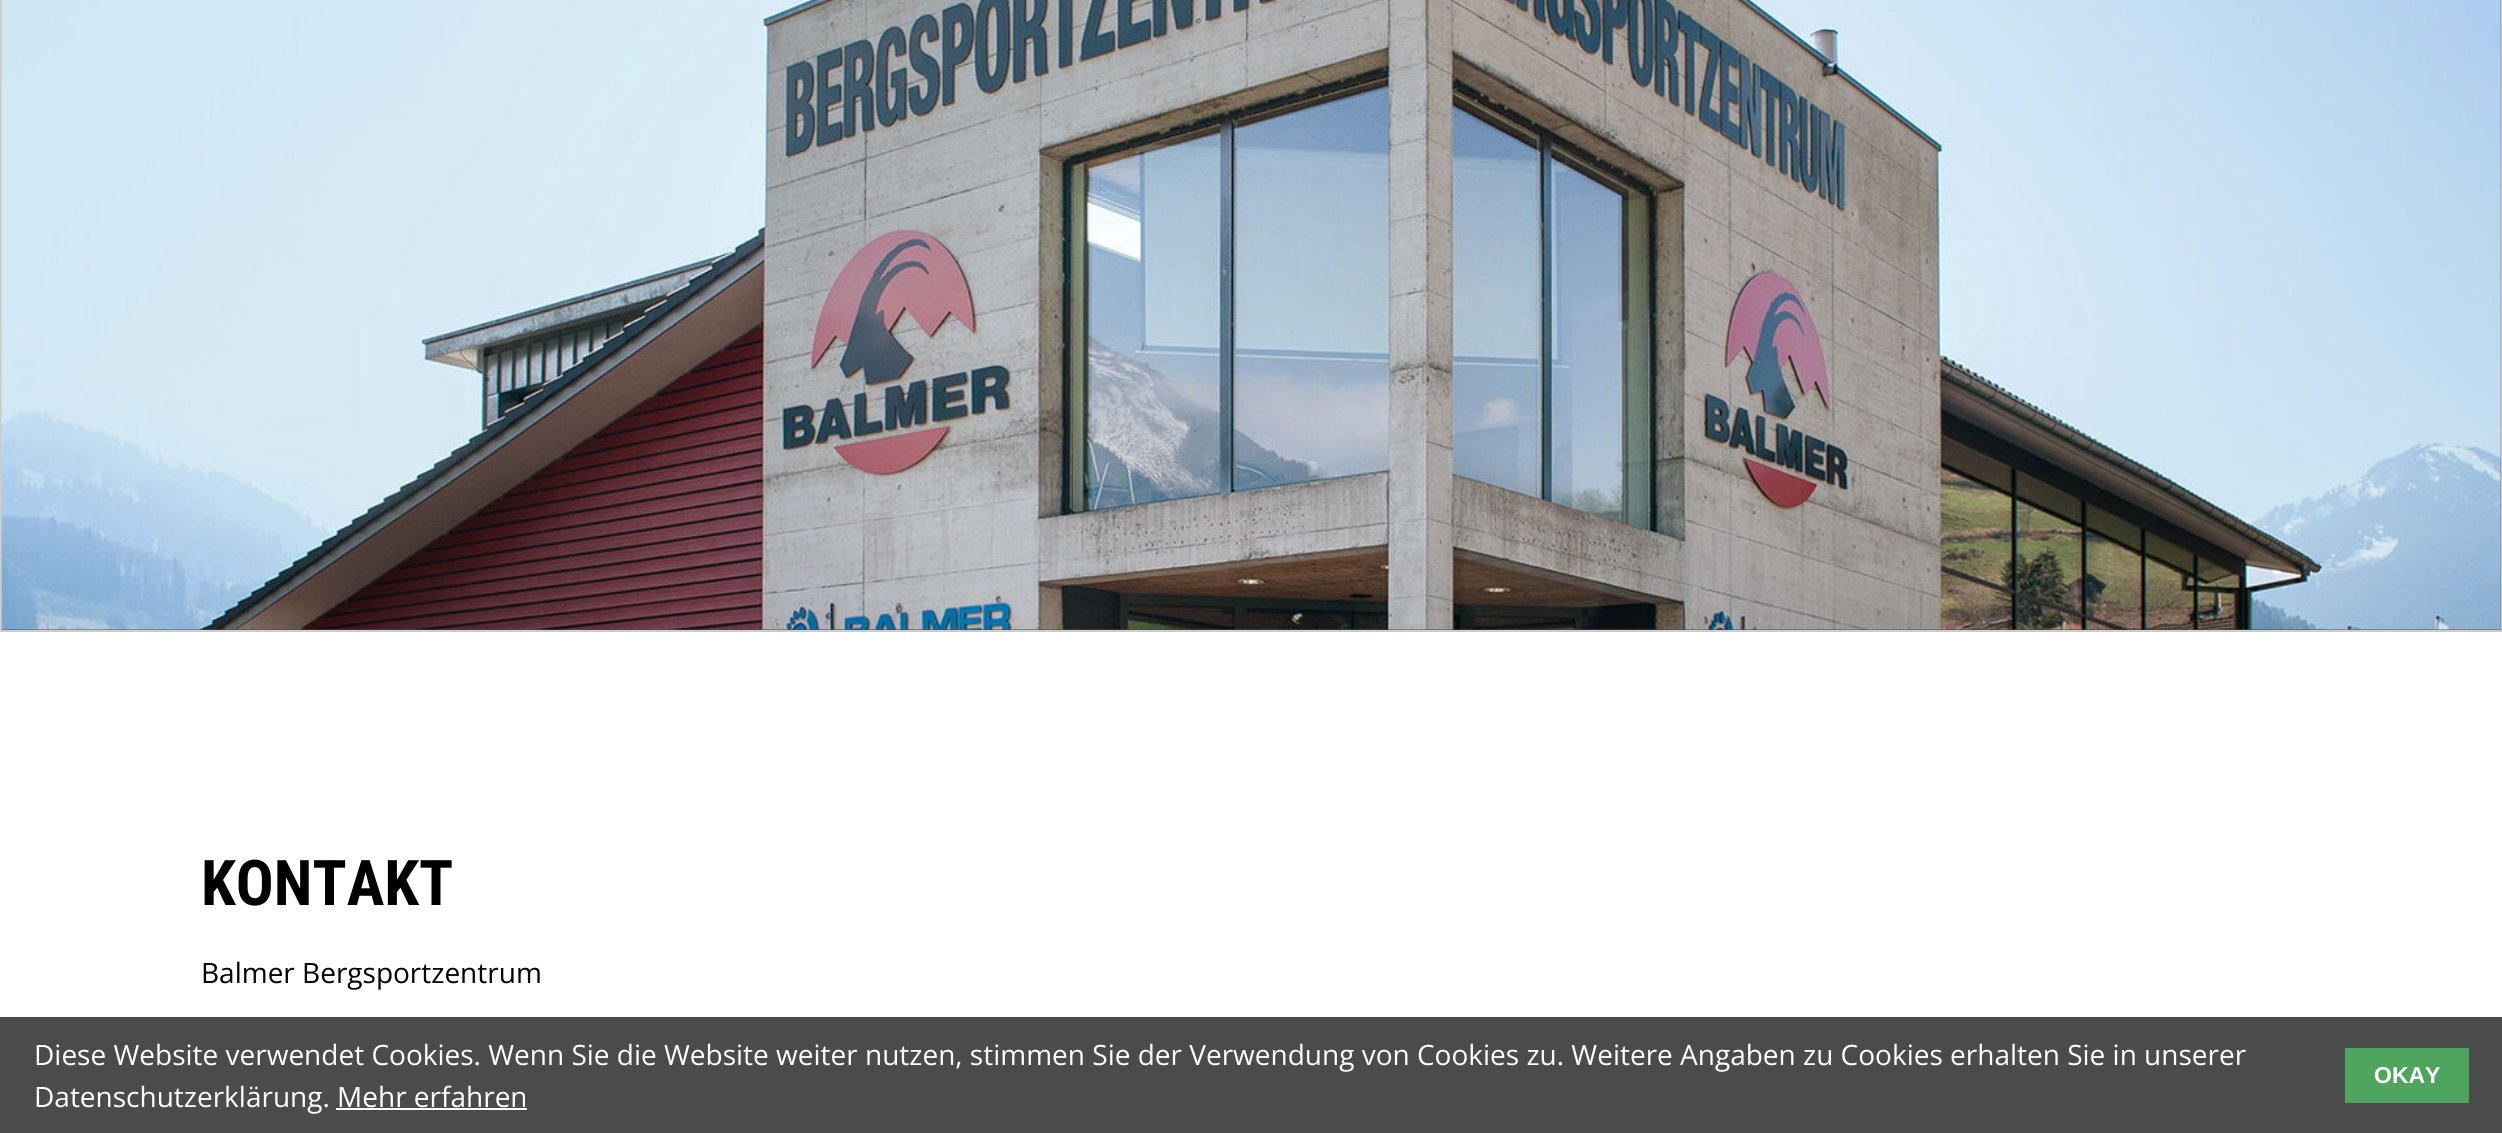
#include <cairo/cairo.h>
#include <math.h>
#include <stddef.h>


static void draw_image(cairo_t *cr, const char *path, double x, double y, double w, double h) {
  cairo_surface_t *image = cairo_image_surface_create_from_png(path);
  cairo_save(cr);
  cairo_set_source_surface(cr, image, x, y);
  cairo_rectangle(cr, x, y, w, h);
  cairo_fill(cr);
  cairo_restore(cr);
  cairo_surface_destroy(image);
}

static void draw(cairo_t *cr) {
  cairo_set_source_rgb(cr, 1, 1, 1);
  cairo_paint(cr);
  cairo_set_source_rgb(cr, 80 / 255.0, 80 / 255.0, 80 / 255.0);
  cairo_rectangle(cr, 1, -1, 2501, 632);
  cairo_fill_preserve(cr);
  cairo_set_source_rgb(cr, 204 / 255.0, 204 / 255.0, 204 / 255.0);
  cairo_stroke(cr);
  draw_image(cr, "images/1.png", 1, 0, 2500, 630);
  cairo_set_source_rgb(cr, 75 / 255.0, 75 / 255.0, 75 / 255.0);
  cairo_rectangle(cr, 0, 1017, 2502, 116);
  cairo_fill(cr);
  cairo_set_source_rgb(cr, 1, 1, 1);
  cairo_rectangle(cr, 336, 1108, 191, 2);
  cairo_fill(cr);
  cairo_set_source_rgb(cr, 78 / 255.0, 165 / 255.0, 94 / 255.0);
  cairo_rectangle(cr, 2345, 1048, 124, 55);
  cairo_fill(cr);
  cairo_select_font_face(cr, "Roboto Condensed", CAIRO_FONT_SLANT_NORMAL, CAIRO_FONT_WEIGHT_BOLD);
  cairo_set_font_size(cr, 63);
  cairo_set_source_rgb(cr, 0, 0, 0);
  cairo_move_to(cr, 201, 905);
  cairo_show_text(cr, "KONTAKT");
  cairo_select_font_face(cr, "Open Sans", CAIRO_FONT_SLANT_NORMAL, CAIRO_FONT_WEIGHT_NORMAL);
  cairo_set_font_size(cr, 28);
  cairo_move_to(cr, 201, 983);
  cairo_show_text(cr, "Balmer Bergsportzentrum");
  cairo_set_source_rgb(cr, 1, 1, 1);
  cairo_move_to(cr, 34, 1065);
  cairo_show_text(cr, "Diese Website verwendet Cookies. Wenn Sie die Website weiter nutzen, stimmen Sie der Verwendung von Cookies zu. Weitere Angaben zu Cookies erhalten Sie in unserer");
  cairo_move_to(cr, 34, 1107);
  cairo_show_text(cr, "Datenschutzerklärung. Mehr erfahren");
  cairo_select_font_face(cr, "Liberation Sans", CAIRO_FONT_SLANT_NORMAL, CAIRO_FONT_WEIGHT_BOLD);
  cairo_set_font_size(cr, 23);
  cairo_move_to(cr, 2374, 1083);
  cairo_show_text(cr, "OKAY");
}

int main(void) {
  cairo_surface_t *surface = cairo_image_surface_create(CAIRO_FORMAT_RGB24, 2502, 1133);
  cairo_t *cr = cairo_create(surface);
  cairo_font_options_t *options = cairo_font_options_create();
  cairo_font_options_set_hint_metrics(options, CAIRO_HINT_METRICS_OFF);
  cairo_font_options_set_hint_style(options, CAIRO_HINT_STYLE_NONE);
  cairo_set_font_options(cr, options);
  cairo_set_miter_limit(cr, 4);
  draw(cr);
  cairo_surface_write_to_png(surface, "out.png");
  cairo_font_options_destroy(options);
  cairo_destroy(cr);
  cairo_surface_destroy(surface);
  return 0;
}
